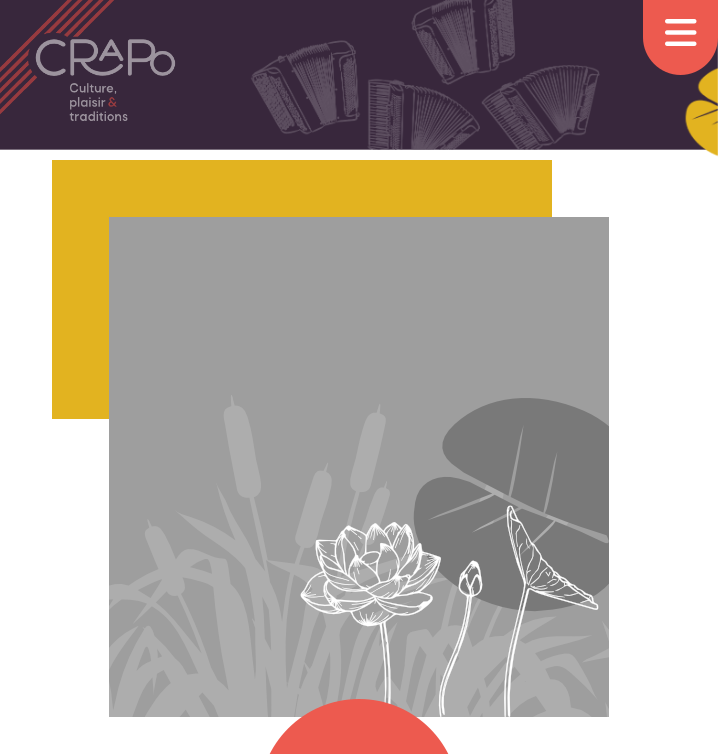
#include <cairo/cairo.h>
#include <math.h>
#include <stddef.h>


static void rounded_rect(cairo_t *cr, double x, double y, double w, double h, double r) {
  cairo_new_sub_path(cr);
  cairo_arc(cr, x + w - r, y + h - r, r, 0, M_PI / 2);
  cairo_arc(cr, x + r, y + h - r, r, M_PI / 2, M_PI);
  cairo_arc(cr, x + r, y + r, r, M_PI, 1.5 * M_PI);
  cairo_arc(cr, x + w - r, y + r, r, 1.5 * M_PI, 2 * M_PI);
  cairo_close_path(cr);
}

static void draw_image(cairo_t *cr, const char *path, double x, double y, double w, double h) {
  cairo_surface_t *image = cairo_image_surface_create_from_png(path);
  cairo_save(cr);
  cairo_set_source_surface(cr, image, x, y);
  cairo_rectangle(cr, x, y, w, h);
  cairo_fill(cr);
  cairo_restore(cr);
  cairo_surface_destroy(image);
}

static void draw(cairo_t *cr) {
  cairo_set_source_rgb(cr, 1, 1, 1);
  cairo_paint(cr);
  draw_image(cr, "images/1.png", 0, 0, 718, 157);
  draw_image(cr, "images/2.png", 0, 0, 176, 121);
  cairo_set_source_rgb(cr, 237 / 255.0, 90 / 255.0, 79 / 255.0);
  cairo_new_path(cr);
  cairo_move_to(cr, 643, 0);
  cairo_line_to(cr, 718, 0);
  cairo_line_to(cr, 718, 37.5);
  cairo_curve_to(cr, 718, 58, 701, 75, 680.5, 75);
  cairo_curve_to(cr, 660, 75, 643, 58, 643, 37.5);
  cairo_close_path(cr);
  cairo_fill(cr);
  draw_image(cr, "images/3.png", 665, 19, 32, 27);
  cairo_set_source_rgb(cr, 226 / 255.0, 179 / 255.0, 32 / 255.0);
  cairo_rectangle(cr, 52, 160, 500, 259);
  cairo_fill(cr);
  draw_image(cr, "images/4.png", 109, 217, 500, 500);
  cairo_set_source_rgb(cr, 237 / 255.0, 90 / 255.0, 79 / 255.0);
  rounded_rect(cr, 259, 699, 200, 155, 100);
  cairo_fill(cr);
}

int main(void) {
  cairo_surface_t *surface = cairo_image_surface_create(CAIRO_FORMAT_RGB24, 718, 754);
  cairo_t *cr = cairo_create(surface);
  cairo_font_options_t *options = cairo_font_options_create();
  cairo_font_options_set_hint_metrics(options, CAIRO_HINT_METRICS_OFF);
  cairo_font_options_set_hint_style(options, CAIRO_HINT_STYLE_NONE);
  cairo_set_font_options(cr, options);
  cairo_set_miter_limit(cr, 4);
  draw(cr);
  cairo_surface_write_to_png(surface, "out.png");
  cairo_font_options_destroy(options);
  cairo_destroy(cr);
  cairo_surface_destroy(surface);
  return 0;
}
